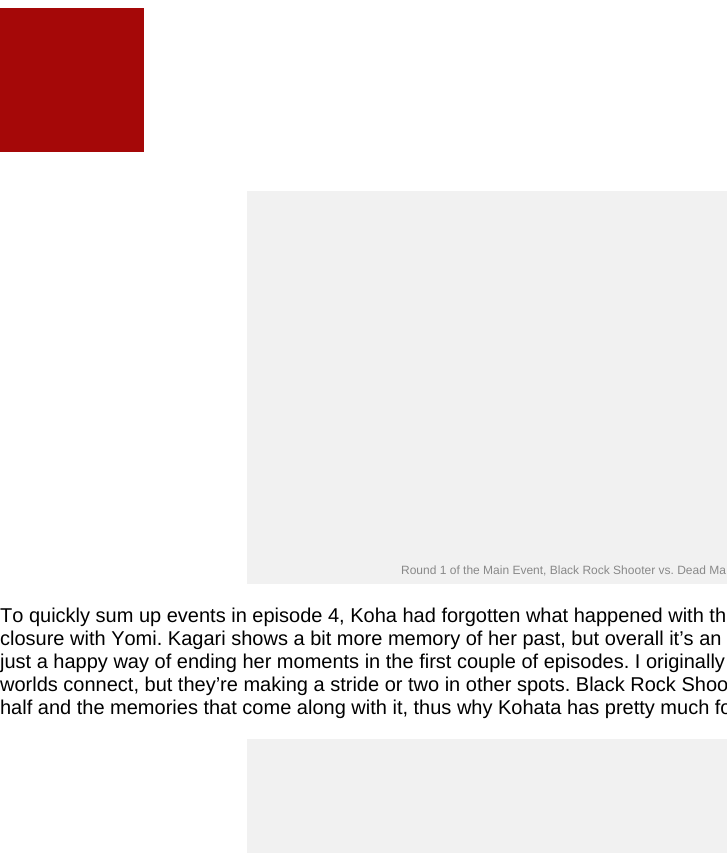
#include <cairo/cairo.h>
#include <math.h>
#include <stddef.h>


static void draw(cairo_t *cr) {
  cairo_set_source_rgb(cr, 1, 1, 1);
  cairo_paint(cr);
  cairo_set_source_rgb(cr, 165 / 255.0, 8 / 255.0, 8 / 255.0);
  cairo_rectangle(cr, 0, 8, 144, 144);
  cairo_fill(cr);
  cairo_set_source_rgb(cr, 241 / 255.0, 241 / 255.0, 241 / 255.0);
  cairo_rectangle(cr, 247, 191, 480, 393);
  cairo_fill(cr);
  cairo_rectangle(cr, 247, 739, 480, 114);
  cairo_fill(cr);
  cairo_select_font_face(cr, "Liberation Sans", CAIRO_FONT_SLANT_NORMAL, CAIRO_FONT_WEIGHT_NORMAL);
  cairo_set_font_size(cr, 12);
  cairo_set_source_rgb(cr, 136 / 255.0, 136 / 255.0, 136 / 255.0);
  cairo_move_to(cr, 401, 574);
  cairo_show_text(cr, "Round 1 of the Main Event, Black Rock Shooter vs. Dead Ma");
  cairo_set_font_size(cr, 20);
  cairo_set_source_rgb(cr, 0, 0, 0);
  cairo_move_to(cr, 0, 622);
  cairo_show_text(cr, "To quickly sum up events in episode 4, Koha had forgotten what happened with th");
  cairo_move_to(cr, 0, 645);
  cairo_show_text(cr, "closure with Yomi. Kagari shows a bit more memory of her past, but overall it’s an");
  cairo_move_to(cr, 0, 668);
  cairo_show_text(cr, "just a happy way of ending her moments in the first couple of episodes. I originally");
  cairo_move_to(cr, 0, 691);
  cairo_show_text(cr, "worlds connect, but they’re making a stride or two in other spots. Black Rock Shoo");
  cairo_move_to(cr, 0, 714);
  cairo_show_text(cr, "half and the memories that come along with it, thus why Kohata has pretty much fo");
}

int main(void) {
  cairo_surface_t *surface = cairo_image_surface_create(CAIRO_FORMAT_RGB24, 727, 853);
  cairo_t *cr = cairo_create(surface);
  cairo_font_options_t *options = cairo_font_options_create();
  cairo_font_options_set_hint_metrics(options, CAIRO_HINT_METRICS_OFF);
  cairo_font_options_set_hint_style(options, CAIRO_HINT_STYLE_NONE);
  cairo_set_font_options(cr, options);
  cairo_set_miter_limit(cr, 4);
  draw(cr);
  cairo_surface_write_to_png(surface, "out.png");
  cairo_font_options_destroy(options);
  cairo_destroy(cr);
  cairo_surface_destroy(surface);
  return 0;
}
